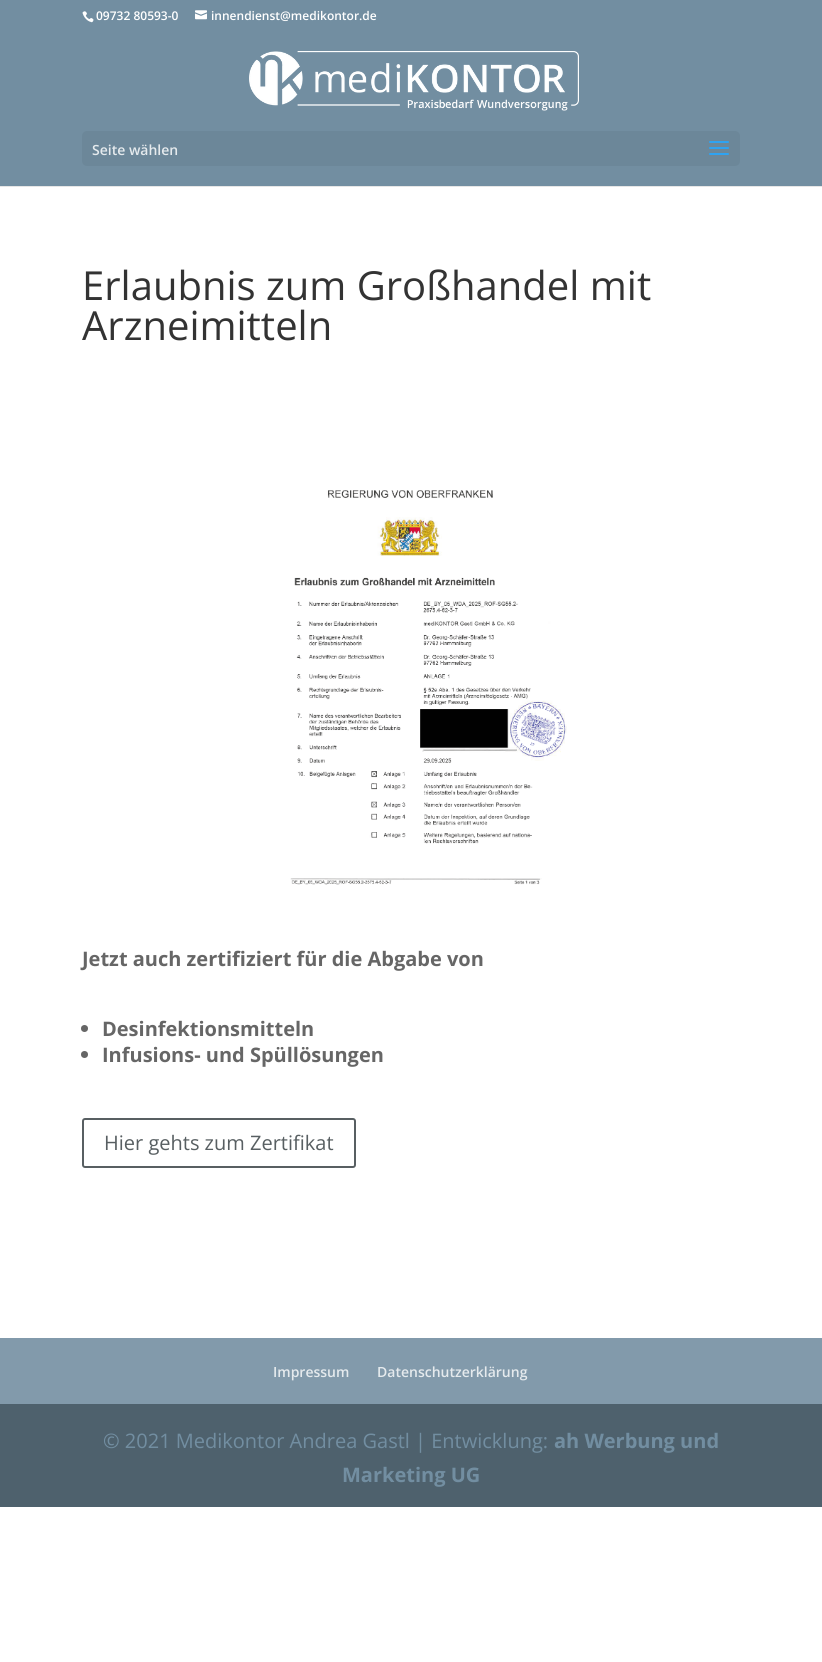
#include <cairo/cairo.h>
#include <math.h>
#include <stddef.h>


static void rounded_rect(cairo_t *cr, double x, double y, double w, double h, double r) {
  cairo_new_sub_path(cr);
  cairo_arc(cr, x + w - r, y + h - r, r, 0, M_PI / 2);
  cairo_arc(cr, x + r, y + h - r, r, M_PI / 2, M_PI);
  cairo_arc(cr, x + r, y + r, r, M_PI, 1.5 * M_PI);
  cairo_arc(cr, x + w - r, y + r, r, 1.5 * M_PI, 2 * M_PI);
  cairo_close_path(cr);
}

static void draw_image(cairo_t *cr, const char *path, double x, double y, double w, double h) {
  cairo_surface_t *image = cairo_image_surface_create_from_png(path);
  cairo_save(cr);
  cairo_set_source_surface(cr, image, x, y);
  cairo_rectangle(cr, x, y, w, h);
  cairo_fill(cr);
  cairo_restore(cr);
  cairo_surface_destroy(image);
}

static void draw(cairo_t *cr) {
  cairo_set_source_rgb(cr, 1, 1, 1);
  cairo_paint(cr);
  cairo_set_source_rgb(cr, 114 / 255.0, 142 / 255.0, 161 / 255.0);
  cairo_rectangle(cr, 0, 0, 822, 186);
  cairo_fill(cr);
  draw_image(cr, "images/1.png", 82, 11, 12, 12);
  draw_image(cr, "images/2.png", 195, 10, 12, 10);
  cairo_set_source_rgb(cr, 230 / 255.0, 230 / 255.0, 230 / 255.0);
  cairo_rectangle(cr, 0, 186, 822, 1);
  cairo_fill(cr);
  draw_image(cr, "images/3.png", 249, 51, 330, 60);
  cairo_set_source_rgb(cr, 108 / 255.0, 135 / 255.0, 153 / 255.0);
  rounded_rect(cr, 82, 131, 658, 35, 5);
  cairo_fill(cr);
  draw_image(cr, "images/4.png", 709, 141, 20, 14);
  draw_image(cr, "images/5.png", 290, 490, 277, 395);
  cairo_set_source_rgb(cr, 102 / 255.0, 102 / 255.0, 102 / 255.0);
  cairo_arc(cr, 84.5, 1028.5, 3.5, 0, 2 * M_PI);
  cairo_fill(cr);
  cairo_arc(cr, 84.5, 1054.5, 3.5, 0, 2 * M_PI);
  cairo_fill(cr);
  rounded_rect(cr, 83, 1119, 272, 48, 2);
  cairo_set_source_rgb(cr, 88 / 255.0, 95 / 255.0, 98 / 255.0);
  cairo_stroke(cr);
  cairo_set_source_rgb(cr, 130 / 255.0, 154 / 255.0, 171 / 255.0);
  cairo_rectangle(cr, 0, 1338, 822, 66);
  cairo_fill(cr);
  cairo_set_source_rgb(cr, 78 / 255.0, 97 / 255.0, 109 / 255.0);
  cairo_rectangle(cr, 0, 1404, 822, 103);
  cairo_fill(cr);
  cairo_select_font_face(cr, "Open Sans SemiBold", CAIRO_FONT_SLANT_NORMAL, CAIRO_FONT_WEIGHT_NORMAL);
  cairo_set_font_size(cr, 12);
  cairo_set_source_rgb(cr, 1, 1, 1);
  cairo_move_to(cr, 96, 20);
  cairo_show_text(cr, "09732 80593-0");
  cairo_move_to(cr, 211, 20);
  cairo_show_text(cr, "innendienst@medikontor.de");
  cairo_set_font_size(cr, 14);
  cairo_set_source_rgb(cr, 229 / 255.0, 234 / 255.0, 237 / 255.0);
  cairo_move_to(cr, 92, 155);
  cairo_show_text(cr, "Seite wählen");
  cairo_select_font_face(cr, "Open Sans", CAIRO_FONT_SLANT_NORMAL, CAIRO_FONT_WEIGHT_NORMAL);
  cairo_set_font_size(cr, 40);
  cairo_set_source_rgb(cr, 51 / 255.0, 51 / 255.0, 51 / 255.0);
  cairo_move_to(cr, 82, 300);
  cairo_show_text(cr, "Erlaubnis zum Großhandel mit");
  cairo_move_to(cr, 82, 340);
  cairo_show_text(cr, "Arzneimitteln");
  cairo_select_font_face(cr, "Open Sans", CAIRO_FONT_SLANT_NORMAL, CAIRO_FONT_WEIGHT_BOLD);
  cairo_set_font_size(cr, 20);
  cairo_set_source_rgb(cr, 102 / 255.0, 102 / 255.0, 102 / 255.0);
  cairo_move_to(cr, 82, 966);
  cairo_show_text(cr, "Jetzt auch zertifiziert für die Abgabe von");
  cairo_move_to(cr, 102, 1036);
  cairo_show_text(cr, "Desinfektionsmitteln");
  cairo_move_to(cr, 102, 1062);
  cairo_show_text(cr, "Infusions- und Spüllösungen");
  cairo_select_font_face(cr, "Open Sans", CAIRO_FONT_SLANT_NORMAL, CAIRO_FONT_WEIGHT_NORMAL);
  cairo_set_source_rgb(cr, 88 / 255.0, 95 / 255.0, 98 / 255.0);
  cairo_move_to(cr, 104, 1150);
  cairo_show_text(cr, "Hier gehts zum Zertifikat");
  cairo_select_font_face(cr, "Open Sans SemiBold", CAIRO_FONT_SLANT_NORMAL, CAIRO_FONT_WEIGHT_NORMAL);
  cairo_set_font_size(cr, 14);
  cairo_set_source_rgb(cr, 229 / 255.0, 234 / 255.0, 237 / 255.0);
  cairo_move_to(cr, 273, 1377);
  cairo_show_text(cr, "Impressum");
  cairo_move_to(cr, 377, 1377);
  cairo_show_text(cr, "Datenschutzerklärung");
  cairo_select_font_face(cr, "Open Sans", CAIRO_FONT_SLANT_NORMAL, CAIRO_FONT_WEIGHT_NORMAL);
  cairo_set_font_size(cr, 20);
  cairo_set_source_rgb(cr, 114 / 255.0, 142 / 255.0, 161 / 255.0);
  cairo_move_to(cr, 103, 1448);
  cairo_show_text(cr, "© 2021 Medikontor Andrea Gastl | Entwicklung:");
  cairo_select_font_face(cr, "Open Sans", CAIRO_FONT_SLANT_NORMAL, CAIRO_FONT_WEIGHT_BOLD);
  cairo_move_to(cr, 554, 1448);
  cairo_show_text(cr, "ah Werbung und");
  cairo_move_to(cr, 342, 1482);
  cairo_show_text(cr, "Marketing UG");
}

int main(void) {
  cairo_surface_t *surface = cairo_image_surface_create(CAIRO_FORMAT_RGB24, 822, 1662);
  cairo_t *cr = cairo_create(surface);
  cairo_font_options_t *options = cairo_font_options_create();
  cairo_font_options_set_hint_metrics(options, CAIRO_HINT_METRICS_OFF);
  cairo_font_options_set_hint_style(options, CAIRO_HINT_STYLE_NONE);
  cairo_set_font_options(cr, options);
  cairo_set_miter_limit(cr, 4);
  draw(cr);
  cairo_surface_write_to_png(surface, "out.png");
  cairo_font_options_destroy(options);
  cairo_destroy(cr);
  cairo_surface_destroy(surface);
  return 0;
}
